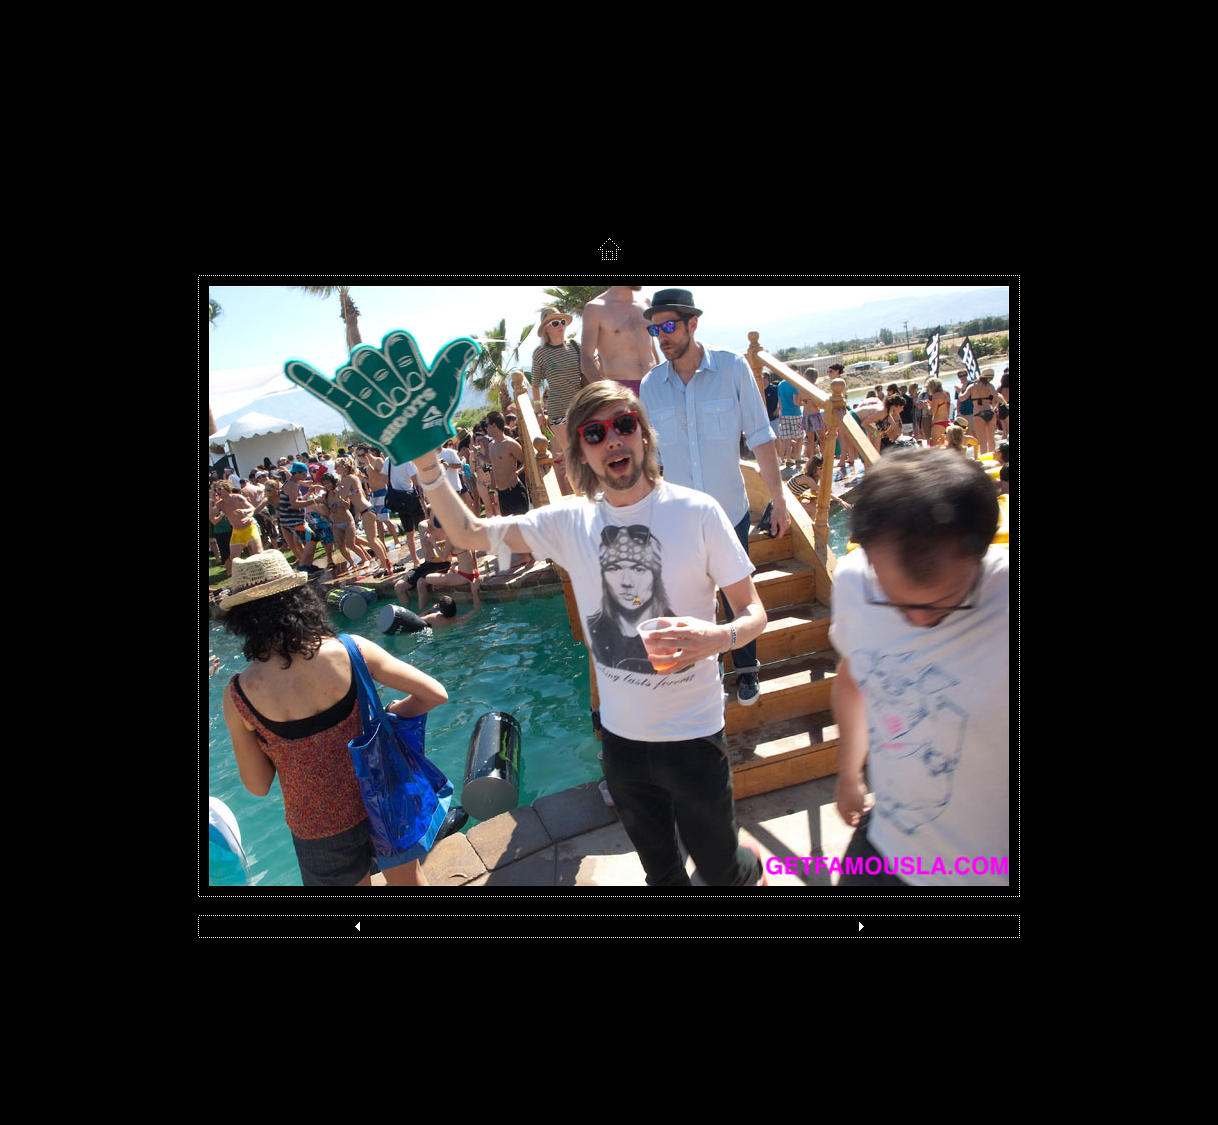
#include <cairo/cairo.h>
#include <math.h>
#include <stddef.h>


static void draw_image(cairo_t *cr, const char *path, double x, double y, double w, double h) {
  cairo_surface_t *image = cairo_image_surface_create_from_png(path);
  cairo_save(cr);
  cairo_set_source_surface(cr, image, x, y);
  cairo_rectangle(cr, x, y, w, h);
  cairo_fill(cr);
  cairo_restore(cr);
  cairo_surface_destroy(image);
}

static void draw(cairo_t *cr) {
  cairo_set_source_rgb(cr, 0, 0, 0);
  cairo_paint(cr);
  draw_image(cr, "images/1.png", 598, 238, 23, 22);
  draw_image(cr, "images/2.png", 199, 275, 821, 1);
  draw_image(cr, "images/3.png", 198, 277, 1, 619);
  draw_image(cr, "images/4.png", 209, 286, 800, 600);
  draw_image(cr, "images/3.png", 1019, 277, 1, 619);
  draw_image(cr, "images/2.png", 199, 896, 821, 1);
  draw_image(cr, "images/2.png", 199, 915, 821, 1);
  draw_image(cr, "images/5.png", 198, 917, 1, 19);
  draw_image(cr, "images/6.png", 355, 922, 5, 9);
  draw_image(cr, "images/7.png", 859, 922, 5, 9);
  draw_image(cr, "images/5.png", 1019, 917, 1, 19);
  draw_image(cr, "images/2.png", 199, 937, 821, 1);
}

int main(void) {
  cairo_surface_t *surface = cairo_image_surface_create(CAIRO_FORMAT_RGB24, 1218, 1125);
  cairo_t *cr = cairo_create(surface);
  cairo_font_options_t *options = cairo_font_options_create();
  cairo_font_options_set_hint_metrics(options, CAIRO_HINT_METRICS_OFF);
  cairo_font_options_set_hint_style(options, CAIRO_HINT_STYLE_NONE);
  cairo_set_font_options(cr, options);
  cairo_set_miter_limit(cr, 4);
  draw(cr);
  cairo_surface_write_to_png(surface, "out.png");
  cairo_font_options_destroy(options);
  cairo_destroy(cr);
  cairo_surface_destroy(surface);
  return 0;
}
